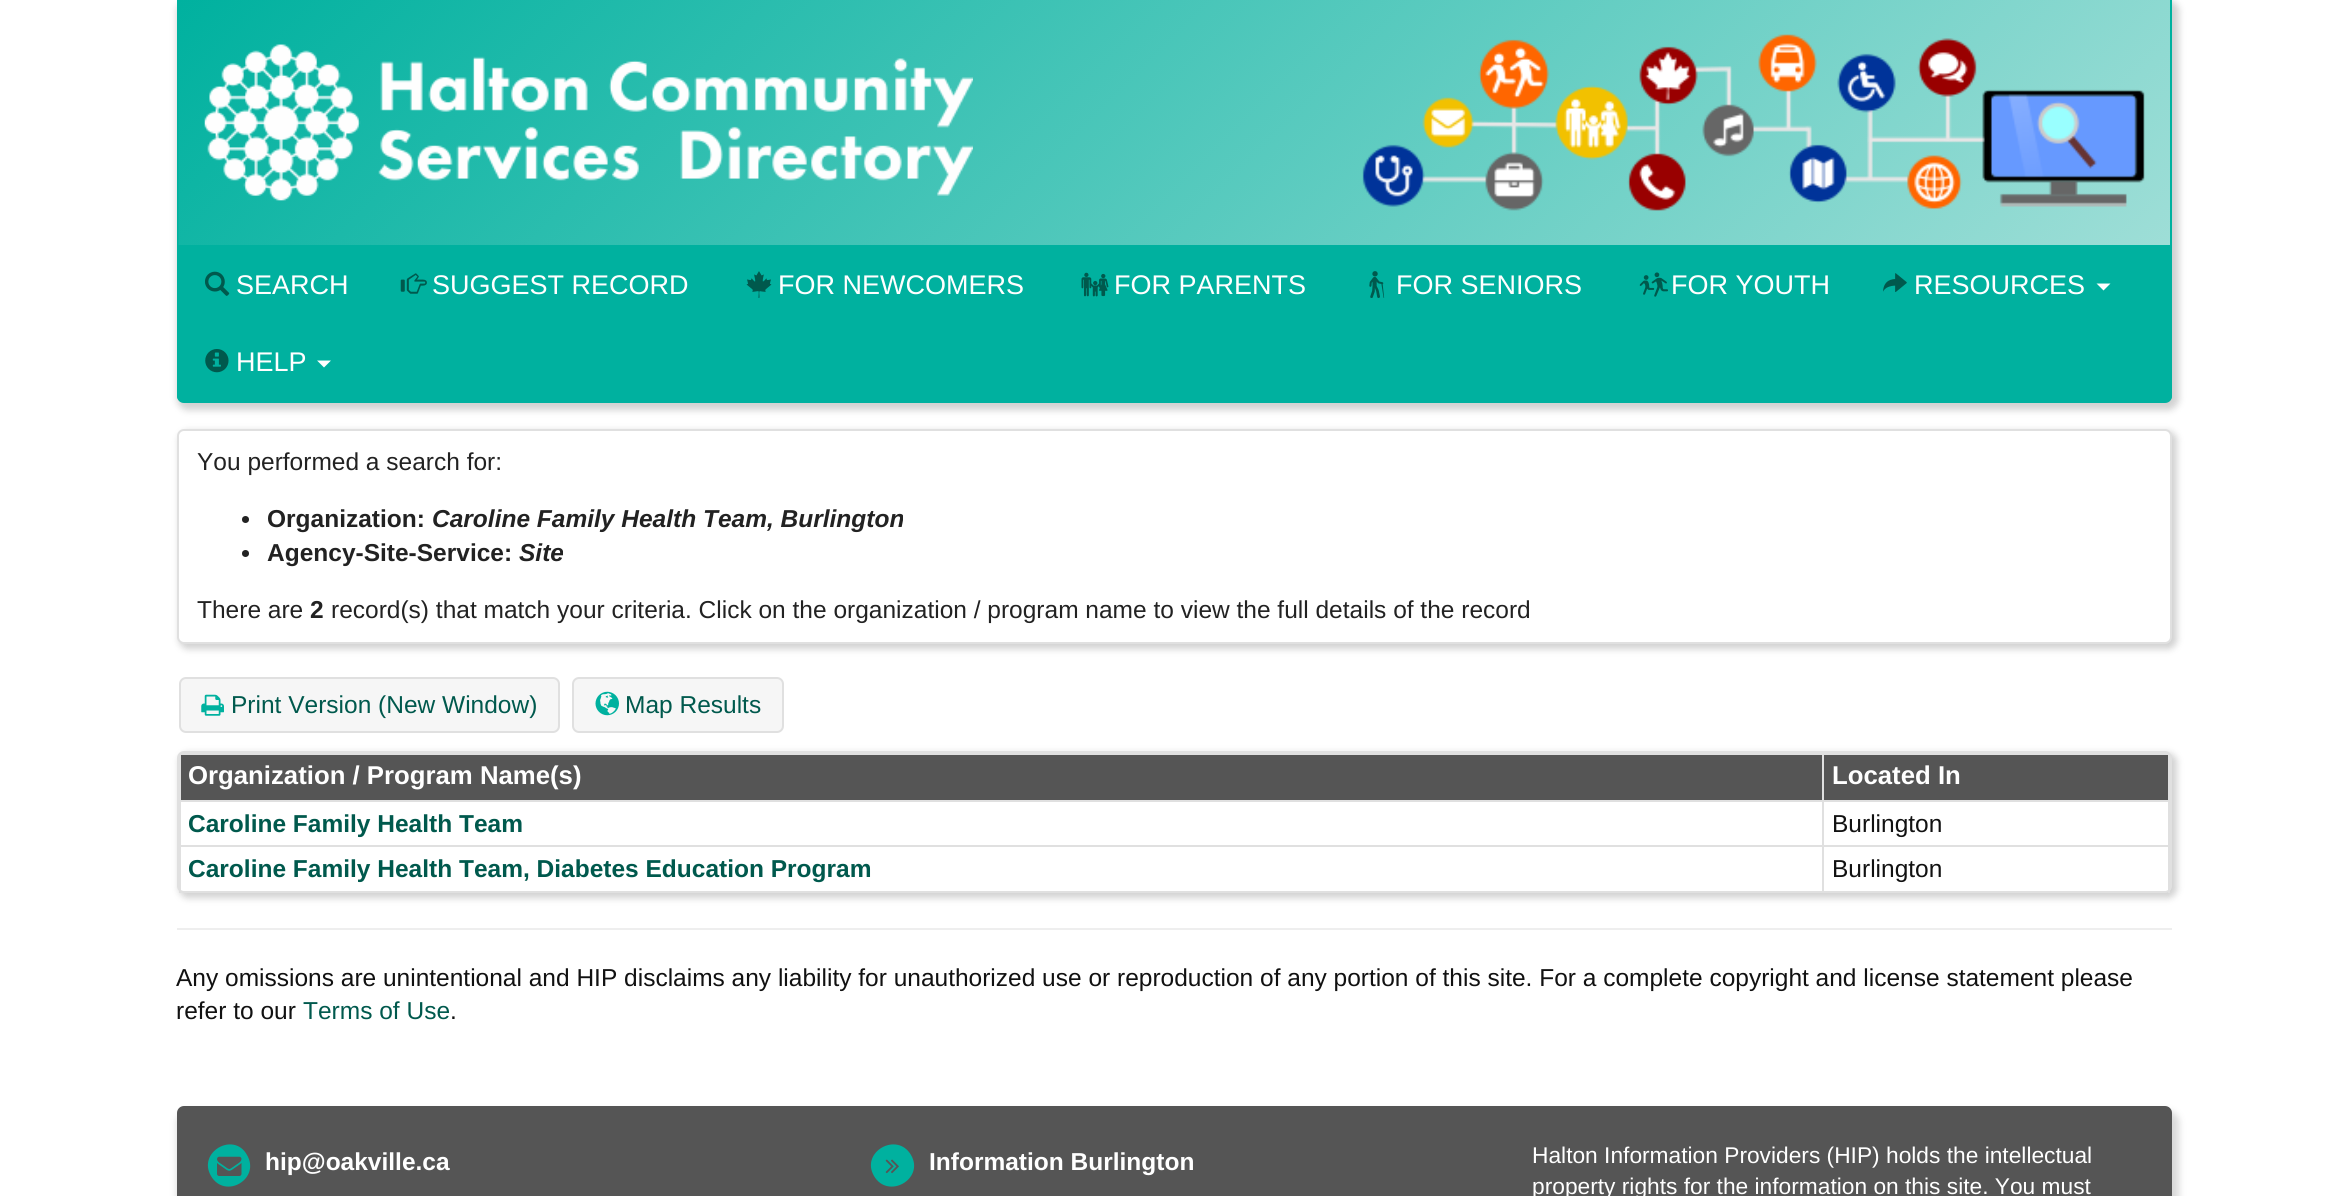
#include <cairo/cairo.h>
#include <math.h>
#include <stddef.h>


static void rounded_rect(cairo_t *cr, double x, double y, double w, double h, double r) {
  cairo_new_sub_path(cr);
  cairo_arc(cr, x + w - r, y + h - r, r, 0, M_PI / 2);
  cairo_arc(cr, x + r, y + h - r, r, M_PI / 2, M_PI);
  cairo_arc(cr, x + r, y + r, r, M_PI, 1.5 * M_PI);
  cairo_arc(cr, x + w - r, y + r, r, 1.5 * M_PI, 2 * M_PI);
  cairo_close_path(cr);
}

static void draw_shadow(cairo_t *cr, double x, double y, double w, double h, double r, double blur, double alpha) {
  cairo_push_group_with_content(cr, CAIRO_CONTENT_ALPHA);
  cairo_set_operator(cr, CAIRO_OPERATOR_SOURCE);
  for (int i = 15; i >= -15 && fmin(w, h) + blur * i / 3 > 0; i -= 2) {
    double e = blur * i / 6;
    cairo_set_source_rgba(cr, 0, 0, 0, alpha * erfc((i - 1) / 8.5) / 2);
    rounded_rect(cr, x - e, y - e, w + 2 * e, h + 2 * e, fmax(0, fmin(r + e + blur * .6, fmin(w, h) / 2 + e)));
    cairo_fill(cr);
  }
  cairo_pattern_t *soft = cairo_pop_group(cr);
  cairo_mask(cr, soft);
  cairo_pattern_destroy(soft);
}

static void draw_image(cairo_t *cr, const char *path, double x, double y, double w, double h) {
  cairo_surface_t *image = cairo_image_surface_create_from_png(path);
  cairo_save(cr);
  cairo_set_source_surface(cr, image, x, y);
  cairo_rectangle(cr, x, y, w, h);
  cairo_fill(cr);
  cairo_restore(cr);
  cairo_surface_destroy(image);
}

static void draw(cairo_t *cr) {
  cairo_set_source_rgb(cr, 1, 1, 1);
  cairo_paint(cr);
  cairo_set_source_rgb(cr, 102 / 255.0, 102 / 255.0, 102 / 255.0);
  draw_shadow(cr, 177, 0, 2002, 410, 11, 3.5, 0.3);
  cairo_set_source_rgb(cr, 0, 177 / 255.0, 159 / 255.0);
  cairo_new_path(cr);
  cairo_move_to(cr, 177, 0);
  cairo_line_to(cr, 2172, 0);
  cairo_line_to(cr, 2172, 396);
  cairo_curve_to(cr, 2172, 400, 2169, 403, 2165, 403);
  cairo_line_to(cr, 184, 403);
  cairo_curve_to(cr, 180, 403, 177, 400, 177, 396);
  cairo_close_path(cr);
  cairo_fill(cr);
  cairo_set_fill_rule(cr, CAIRO_FILL_RULE_EVEN_ODD);
  cairo_new_path(cr);
  cairo_move_to(cr, 177, 0);
  cairo_line_to(cr, 2172, 0);
  cairo_line_to(cr, 2172, 396);
  cairo_curve_to(cr, 2172, 399, 2169, 402, 2165, 402);
  cairo_line_to(cr, 184, 402);
  cairo_curve_to(cr, 180, 402, 177, 399, 177, 396);
  cairo_close_path(cr);
  cairo_move_to(cr, 178, 0);
  cairo_line_to(cr, 2170, 0);
  cairo_line_to(cr, 2170, 396);
  cairo_curve_to(cr, 2170, 398, 2168, 401, 2165, 401);
  cairo_line_to(cr, 184, 401);
  cairo_curve_to(cr, 181, 401, 178, 398, 178, 396);
  cairo_close_path(cr);
  cairo_fill(cr);
  draw_image(cr, "images/1.png", 178, 0, 1992, 245);
  draw_image(cr, "images/2.png", 204, 44, 769, 157);
  draw_image(cr, "images/3.png", 205, 271, 25, 25);
  draw_image(cr, "images/4.png", 400, 273, 27, 21);
  draw_image(cr, "images/5.png", 746, 271, 26, 27);
  draw_image(cr, "images/6.png", 1081, 272, 28, 25);
  draw_image(cr, "images/7.png", 1369, 271, 16, 27);
  draw_image(cr, "images/8.png", 1639, 272, 29, 25);
  draw_image(cr, "images/9.png", 1883, 273, 24, 19);
  cairo_set_source_rgb(cr, 1, 1, 1);
  cairo_set_fill_rule(cr, CAIRO_FILL_RULE_WINDING);
  cairo_new_path(cr);
  cairo_move_to(cr, 2096.5, 283.5);
  cairo_line_to(cr, 2110.5, 283.5);
  cairo_line_to(cr, 2103.5, 290.5);
  cairo_close_path(cr);
  cairo_fill(cr);
  draw_image(cr, "images/10.png", 205, 349, 24, 24);
  cairo_new_path(cr);
  cairo_move_to(cr, 317, 360.5);
  cairo_line_to(cr, 331, 360.5);
  cairo_line_to(cr, 324, 367.5);
  cairo_close_path(cr);
  cairo_fill(cr);
  cairo_set_source_rgb(cr, 102 / 255.0, 102 / 255.0, 102 / 255.0);
  draw_shadow(cr, 179, 431, 1998, 218, 9, 3.5, 0.3);
  cairo_set_source_rgb(cr, 1, 1, 1);
  rounded_rect(cr, 178, 430, 1993, 213, 6);
  cairo_fill_preserve(cr);
  cairo_set_source_rgb(cr, 224 / 255.0, 224 / 255.0, 224 / 255.0);
  cairo_stroke(cr);
  cairo_set_source_rgb(cr, 34 / 255.0, 34 / 255.0, 34 / 255.0);
  cairo_arc(cr, 245.5, 519.5, 3.5, 0, 2 * M_PI);
  cairo_fill(cr);
  cairo_arc(cr, 245.5, 553.5, 3.5, 0, 2 * M_PI);
  cairo_fill(cr);
  cairo_set_source_rgb(cr, 246 / 255.0, 246 / 255.0, 246 / 255.0);
  rounded_rect(cr, 180, 678, 379, 54, 6);
  cairo_fill_preserve(cr);
  cairo_set_source_rgb(cr, 224 / 255.0, 224 / 255.0, 224 / 255.0);
  cairo_stroke(cr);
  draw_image(cr, "images/11.png", 201, 694, 23, 22);
  cairo_set_source_rgb(cr, 246 / 255.0, 246 / 255.0, 246 / 255.0);
  rounded_rect(cr, 573, 678, 210, 54, 6);
  cairo_fill_preserve(cr);
  cairo_set_source_rgb(cr, 224 / 255.0, 224 / 255.0, 224 / 255.0);
  cairo_stroke(cr);
  draw_image(cr, "images/12.png", 595, 691, 24, 25);
  cairo_set_source_rgb(cr, 102 / 255.0, 102 / 255.0, 102 / 255.0);
  draw_shadow(cr, 179, 753, 1998, 145, 9, 3.5, 0.3);
  cairo_set_source_rgb(cr, 1, 1, 1);
  rounded_rect(cr, 178, 752, 1993, 140, 6);
  cairo_fill_preserve(cr);
  cairo_set_source_rgb(cr, 224 / 255.0, 224 / 255.0, 224 / 255.0);
  cairo_stroke(cr);
  cairo_rectangle(cr, 179, 753, 1991, 2);
  cairo_fill(cr);
  cairo_set_source_rgb(cr, 85 / 255.0, 85 / 255.0, 85 / 255.0);
  cairo_rectangle(cr, 181, 755, 1987, 45);
  cairo_fill(cr);
  cairo_set_source_rgb(cr, 224 / 255.0, 224 / 255.0, 224 / 255.0);
  cairo_rectangle(cr, 1822, 800, 348, 2);
  cairo_fill(cr);
  cairo_rectangle(cr, 1822, 845, 348, 2);
  cairo_fill(cr);
  cairo_rectangle(cr, 1822, 845, 2, 48);
  cairo_fill(cr);
  cairo_rectangle(cr, 179, 845, 1645, 2);
  cairo_fill(cr);
  cairo_rectangle(cr, 1822, 800, 2, 47);
  cairo_fill(cr);
  cairo_rectangle(cr, 179, 800, 1645, 2);
  cairo_fill(cr);
  cairo_rectangle(cr, 1822, 753, 2, 49);
  cairo_fill(cr);
  cairo_rectangle(cr, 179, 845, 2, 48);
  cairo_fill(cr);
  cairo_rectangle(cr, 179, 753, 2, 94);
  cairo_fill(cr);
  cairo_rectangle(cr, 2168, 845, 2, 48);
  cairo_fill(cr);
  cairo_rectangle(cr, 2168, 753, 2, 94);
  cairo_fill(cr);
  cairo_set_source_rgb(cr, 238 / 255.0, 238 / 255.0, 238 / 255.0);
  cairo_rectangle(cr, 177, 928, 1995, 2);
  cairo_fill(cr);
  cairo_set_source_rgb(cr, 102 / 255.0, 102 / 255.0, 102 / 255.0);
  draw_shadow(cr, 177, 1111, 2002, 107, 11, 3.5, 0.25);
  cairo_set_source_rgb(cr, 85 / 255.0, 85 / 255.0, 85 / 255.0);
  rounded_rect(cr, 178, 1107, 1993, 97, 6);
  cairo_fill_preserve(cr);
  cairo_stroke(cr);
  cairo_set_source_rgb(cr, 0, 177 / 255.0, 159 / 255.0);
  cairo_new_path(cr);
  cairo_move_to(cr, 247, 1155);
  cairo_curve_to(cr, 261, 1179, 225, 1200, 211, 1176);
  cairo_curve_to(cr, 197, 1152, 234, 1131, 247, 1155);
  cairo_close_path(cr);
  cairo_fill(cr);
  draw_image(cr, "images/13.png", 217, 1156, 25, 20);
  cairo_new_path(cr);
  cairo_move_to(cr, 911, 1155);
  cairo_curve_to(cr, 925, 1179, 888, 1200, 874, 1176);
  cairo_curve_to(cr, 860, 1152, 897, 1131, 911, 1155);
  cairo_close_path(cr);
  cairo_fill(cr);
  draw_image(cr, "images/14.png", 885, 1159, 14, 15);
  cairo_select_font_face(cr, "Liberation Sans", CAIRO_FONT_SLANT_NORMAL, CAIRO_FONT_WEIGHT_NORMAL);
  cairo_set_font_size(cr, 27);
  cairo_set_source_rgb(cr, 1, 1, 1);
  cairo_move_to(cr, 236, 294);
  cairo_show_text(cr, "SEARCH");
  cairo_move_to(cr, 432, 294);
  cairo_show_text(cr, "SUGGEST RECORD");
  cairo_move_to(cr, 778, 294);
  cairo_show_text(cr, "FOR NEWCOMERS");
  cairo_move_to(cr, 1114, 294);
  cairo_show_text(cr, "FOR PARENTS");
  cairo_move_to(cr, 1396, 294);
  cairo_show_text(cr, "FOR SENIORS");
  cairo_move_to(cr, 1671, 294);
  cairo_show_text(cr, "FOR YOUTH");
  cairo_move_to(cr, 1914, 294);
  cairo_show_text(cr, "RESOURCES");
  cairo_move_to(cr, 236, 371);
  cairo_show_text(cr, "HELP");
  cairo_set_font_size(cr, 24.5);
  cairo_set_source_rgb(cr, 34 / 255.0, 34 / 255.0, 34 / 255.0);
  cairo_move_to(cr, 197, 470);
  cairo_show_text(cr, "You performed a search for:");
  cairo_select_font_face(cr, "Liberation Sans", CAIRO_FONT_SLANT_NORMAL, CAIRO_FONT_WEIGHT_BOLD);
  cairo_move_to(cr, 267, 527);
  cairo_show_text(cr, "Organization:");
  cairo_select_font_face(cr, "Liberation Sans", CAIRO_FONT_SLANT_ITALIC, CAIRO_FONT_WEIGHT_BOLD);
  cairo_move_to(cr, 432, 527);
  cairo_show_text(cr, "Caroline Family Health Team, Burlington");
  cairo_select_font_face(cr, "Liberation Sans", CAIRO_FONT_SLANT_NORMAL, CAIRO_FONT_WEIGHT_BOLD);
  cairo_move_to(cr, 267, 561);
  cairo_show_text(cr, "Agency-Site-Service:");
  cairo_select_font_face(cr, "Liberation Sans", CAIRO_FONT_SLANT_ITALIC, CAIRO_FONT_WEIGHT_BOLD);
  cairo_move_to(cr, 519, 561);
  cairo_show_text(cr, "Site");
  cairo_select_font_face(cr, "Liberation Sans", CAIRO_FONT_SLANT_NORMAL, CAIRO_FONT_WEIGHT_NORMAL);
  cairo_move_to(cr, 197, 618);
  cairo_show_text(cr, "There are");
  cairo_select_font_face(cr, "Liberation Sans", CAIRO_FONT_SLANT_NORMAL, CAIRO_FONT_WEIGHT_BOLD);
  cairo_move_to(cr, 310, 618);
  cairo_show_text(cr, "2");
  cairo_select_font_face(cr, "Liberation Sans", CAIRO_FONT_SLANT_NORMAL, CAIRO_FONT_WEIGHT_NORMAL);
  cairo_move_to(cr, 331, 618);
  cairo_show_text(cr, "record(s) that match your criteria. Click on the organization / program name to view the full details of the record");
  cairo_set_source_rgb(cr, 0, 89 / 255.0, 77 / 255.0);
  cairo_move_to(cr, 231, 713);
  cairo_show_text(cr, "Print Version (New Window)");
  cairo_move_to(cr, 625, 713);
  cairo_show_text(cr, "Map Results");
  cairo_select_font_face(cr, "Liberation Sans", CAIRO_FONT_SLANT_NORMAL, CAIRO_FONT_WEIGHT_BOLD);
  cairo_set_font_size(cr, 25.75);
  cairo_set_source_rgb(cr, 1, 1, 1);
  cairo_move_to(cr, 188, 784);
  cairo_show_text(cr, "Organization / Program Name(s)");
  cairo_move_to(cr, 1832, 784);
  cairo_show_text(cr, "Located In");
  cairo_set_font_size(cr, 24.5);
  cairo_set_source_rgb(cr, 0, 89 / 255.0, 77 / 255.0);
  cairo_move_to(cr, 188, 832);
  cairo_show_text(cr, "Caroline Family Health Team");
  cairo_select_font_face(cr, "Liberation Sans", CAIRO_FONT_SLANT_NORMAL, CAIRO_FONT_WEIGHT_NORMAL);
  cairo_set_source_rgb(cr, 17 / 255.0, 17 / 255.0, 17 / 255.0);
  cairo_move_to(cr, 1832, 832);
  cairo_show_text(cr, "Burlington");
  cairo_select_font_face(cr, "Liberation Sans", CAIRO_FONT_SLANT_NORMAL, CAIRO_FONT_WEIGHT_BOLD);
  cairo_set_source_rgb(cr, 0, 89 / 255.0, 77 / 255.0);
  cairo_move_to(cr, 188, 877);
  cairo_show_text(cr, "Caroline Family Health Team, Diabetes Education Program");
  cairo_select_font_face(cr, "Liberation Sans", CAIRO_FONT_SLANT_NORMAL, CAIRO_FONT_WEIGHT_NORMAL);
  cairo_set_source_rgb(cr, 17 / 255.0, 17 / 255.0, 17 / 255.0);
  cairo_move_to(cr, 1832, 877);
  cairo_show_text(cr, "Burlington");
  cairo_move_to(cr, 176, 986);
  cairo_show_text(cr, "Any omissions are unintentional and HIP disclaims any liability for unauthorized use or reproduction of any portion of this site. For a complete copyright and license statement please");
  cairo_move_to(cr, 176, 1019);
  cairo_show_text(cr, "refer to our");
  cairo_set_source_rgb(cr, 0, 89 / 255.0, 77 / 255.0);
  cairo_move_to(cr, 303, 1019);
  cairo_show_text(cr, "Terms of Use");
  cairo_set_source_rgb(cr, 17 / 255.0, 17 / 255.0, 17 / 255.0);
  cairo_move_to(cr, 450, 1019);
  cairo_show_text(cr, ".");
  cairo_select_font_face(cr, "Liberation Sans", CAIRO_FONT_SLANT_NORMAL, CAIRO_FONT_WEIGHT_BOLD);
  cairo_set_source_rgb(cr, 1, 1, 1);
  cairo_move_to(cr, 265, 1170);
  cairo_show_text(cr, "hip@oakville.ca");
  cairo_move_to(cr, 929, 1170);
  cairo_show_text(cr, "Information Burlington");
  cairo_select_font_face(cr, "Liberation Sans", CAIRO_FONT_SLANT_NORMAL, CAIRO_FONT_WEIGHT_NORMAL);
  cairo_set_font_size(cr, 22.75);
  cairo_move_to(cr, 1532, 1163);
  cairo_show_text(cr, "Halton Information Providers (HIP) holds the intellectual");
  cairo_move_to(cr, 1532, 1194);
  cairo_show_text(cr, "property rights for the information on this site. You must");
}

int main(void) {
  cairo_surface_t *surface = cairo_image_surface_create(CAIRO_FORMAT_RGB24, 2346, 1196);
  cairo_t *cr = cairo_create(surface);
  cairo_font_options_t *options = cairo_font_options_create();
  cairo_font_options_set_hint_metrics(options, CAIRO_HINT_METRICS_OFF);
  cairo_font_options_set_hint_style(options, CAIRO_HINT_STYLE_NONE);
  cairo_set_font_options(cr, options);
  cairo_set_miter_limit(cr, 4);
  draw(cr);
  cairo_surface_write_to_png(surface, "out.png");
  cairo_font_options_destroy(options);
  cairo_destroy(cr);
  cairo_surface_destroy(surface);
  return 0;
}
